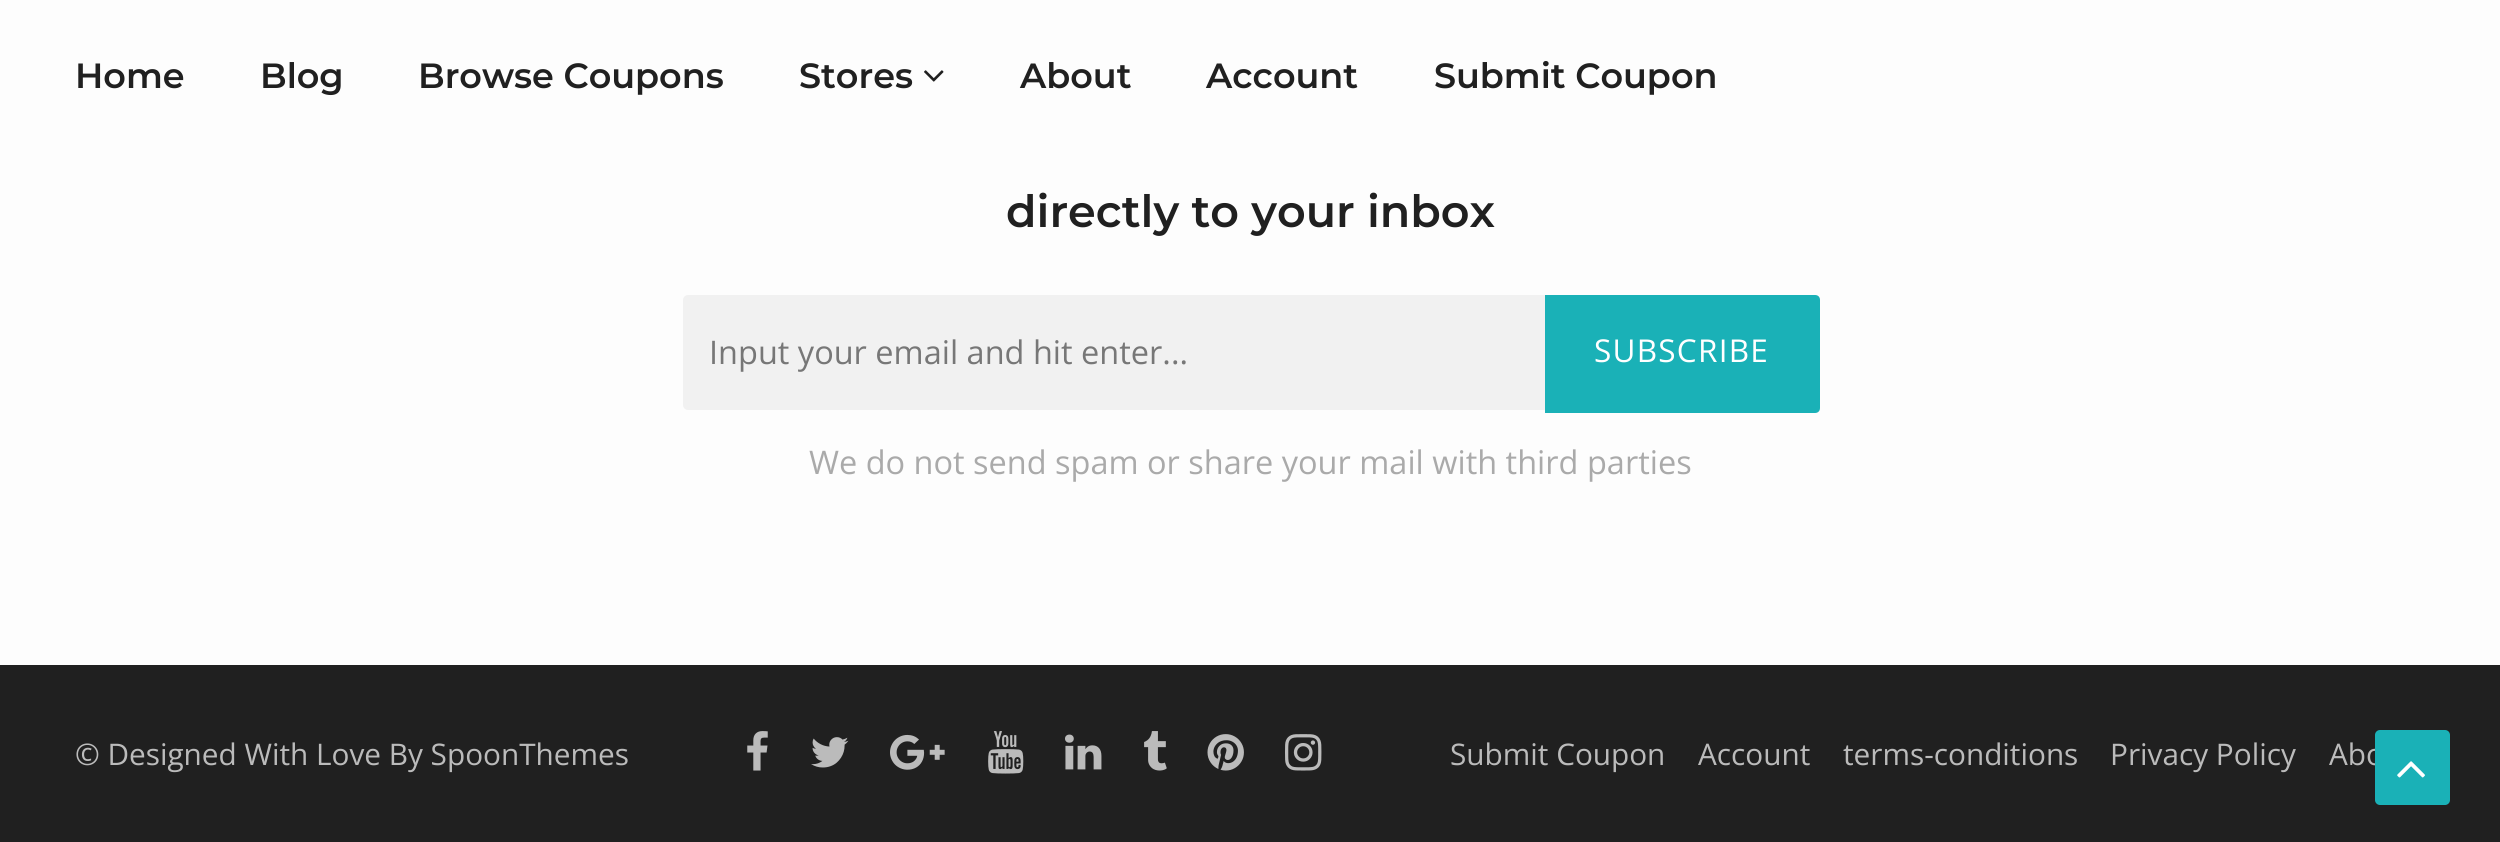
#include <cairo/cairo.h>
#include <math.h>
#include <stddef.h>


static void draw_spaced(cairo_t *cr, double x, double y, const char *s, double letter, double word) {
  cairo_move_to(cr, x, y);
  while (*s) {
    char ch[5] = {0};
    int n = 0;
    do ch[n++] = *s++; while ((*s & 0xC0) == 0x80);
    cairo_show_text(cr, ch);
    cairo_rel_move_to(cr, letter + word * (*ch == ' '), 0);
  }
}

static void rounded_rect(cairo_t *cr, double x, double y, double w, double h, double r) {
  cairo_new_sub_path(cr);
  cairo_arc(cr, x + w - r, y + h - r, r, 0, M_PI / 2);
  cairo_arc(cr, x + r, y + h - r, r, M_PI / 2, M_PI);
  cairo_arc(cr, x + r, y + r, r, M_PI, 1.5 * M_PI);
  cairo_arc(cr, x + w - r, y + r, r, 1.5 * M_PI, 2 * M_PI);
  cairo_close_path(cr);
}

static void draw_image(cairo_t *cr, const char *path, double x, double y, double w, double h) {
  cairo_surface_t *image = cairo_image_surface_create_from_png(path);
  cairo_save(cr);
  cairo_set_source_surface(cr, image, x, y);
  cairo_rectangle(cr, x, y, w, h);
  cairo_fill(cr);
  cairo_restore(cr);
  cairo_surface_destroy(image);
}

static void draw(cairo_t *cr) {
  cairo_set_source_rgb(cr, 253 / 255.0, 253 / 255.0, 253 / 255.0);
  cairo_paint(cr);
  draw_image(cr, "images/1.png", 924, 70, 20, 12);
  cairo_set_source_rgb(cr, 241 / 255.0, 241 / 255.0, 241 / 255.0);
  rounded_rect(cr, 684.5, 296.5, 1134, 112, 3.5);
  cairo_fill_preserve(cr);
  cairo_set_line_width(cr, 3);
  cairo_stroke(cr);
  cairo_set_source_rgb(cr, 26 / 255.0, 177 / 255.0, 183 / 255.0);
  cairo_new_path(cr);
  cairo_move_to(cr, 1545, 295);
  cairo_line_to(cr, 1815, 295);
  cairo_curve_to(cr, 1818, 295, 1820, 297, 1820, 300);
  cairo_line_to(cr, 1820, 408);
  cairo_curve_to(cr, 1820, 411, 1818, 413, 1815, 413);
  cairo_line_to(cr, 1545, 413);
  cairo_close_path(cr);
  cairo_fill(cr);
  cairo_set_source_rgb(cr, 32 / 255.0, 32 / 255.0, 32 / 255.0);
  cairo_rectangle(cr, 0, 665, 2500, 177);
  cairo_fill(cr);
  draw_image(cr, "images/2.png", 747, 731, 21, 40);
  draw_image(cr, "images/3.png", 811, 737, 38, 31);
  draw_image(cr, "images/4.png", 890, 734, 55, 36);
  draw_image(cr, "images/5.png", 988, 731, 36, 43);
  draw_image(cr, "images/6.png", 1065, 734, 37, 36);
  draw_image(cr, "images/7.png", 1144, 731, 23, 40);
  draw_image(cr, "images/8.png", 1207, 734, 37, 37);
  draw_image(cr, "images/9.png", 1285, 734, 37, 37);
  cairo_select_font_face(cr, "Montserrat Thin", CAIRO_FONT_SLANT_NORMAL, CAIRO_FONT_WEIGHT_NORMAL);
  cairo_set_font_size(cr, 35);
  cairo_move_to(cr, 75, 88);
  cairo_show_text(cr, "Home");
  cairo_move_to(cr, 260, 88);
  cairo_show_text(cr, "Blog");
  cairo_move_to(cr, 418, 88);
  cairo_show_text(cr, "Browse Coupons");
  cairo_move_to(cr, 799, 88);
  cairo_show_text(cr, "Stores");
  cairo_move_to(cr, 1020, 88);
  cairo_show_text(cr, "About");
  cairo_move_to(cr, 1206, 88);
  cairo_show_text(cr, "Account");
  cairo_move_to(cr, 1434, 88);
  cairo_show_text(cr, "Submit Coupon");
  cairo_set_font_size(cr, 44.5);
  cairo_move_to(cr, 1006, 227);
  cairo_show_text(cr, "directly to your inbox");
  cairo_select_font_face(cr, "Open Sans", CAIRO_FONT_SLANT_NORMAL, CAIRO_FONT_WEIGHT_NORMAL);
  cairo_set_font_size(cr, 32.5);
  cairo_set_source_rgb(cr, 119 / 255.0, 119 / 255.0, 119 / 255.0);
  cairo_move_to(cr, 709, 364);
  cairo_show_text(cr, "Input your email and hit enter...");
  cairo_set_font_size(cr, 31.5);
  cairo_set_source_rgb(cr, 1, 1, 1);
  draw_spaced(cr, 1594, 362, "SUBSCRIBE", 1.25, 0);
  cairo_set_font_size(cr, 32.5);
  cairo_set_source_rgb(cr, 170 / 255.0, 170 / 255.0, 170 / 255.0);
  cairo_move_to(cr, 809, 474);
  cairo_show_text(cr, "We do not send spam or share your mail with third parties");
  cairo_set_font_size(cr, 29.75);
  cairo_set_source_rgb(cr, 187 / 255.0, 187 / 255.0, 187 / 255.0);
  cairo_move_to(cr, 75, 765);
  cairo_show_text(cr, "© Designed With Love By SpoonThemes");
  cairo_move_to(cr, 1450, 765);
  cairo_show_text(cr, "Submit Coupon");
  cairo_move_to(cr, 1698, 765);
  cairo_show_text(cr, "Account");
  cairo_move_to(cr, 1843, 765);
  cairo_show_text(cr, "terms-conditions");
  cairo_move_to(cr, 2110, 765);
  cairo_show_text(cr, "Privacy Policy");
  cairo_move_to(cr, 2329, 765);
  cairo_show_text(cr, "Abo");
  cairo_set_source_rgb(cr, 26 / 255.0, 177 / 255.0, 183 / 255.0);
  rounded_rect(cr, 2375, 730, 75, 75, 5);
  cairo_fill(cr);
  draw_image(cr, "images/10.png", 2397, 761, 28, 17);
}

int main(void) {
  cairo_surface_t *surface = cairo_image_surface_create(CAIRO_FORMAT_RGB24, 2500, 842);
  cairo_t *cr = cairo_create(surface);
  cairo_font_options_t *options = cairo_font_options_create();
  cairo_font_options_set_hint_metrics(options, CAIRO_HINT_METRICS_OFF);
  cairo_font_options_set_hint_style(options, CAIRO_HINT_STYLE_NONE);
  cairo_set_font_options(cr, options);
  cairo_set_miter_limit(cr, 4);
  draw(cr);
  cairo_surface_write_to_png(surface, "out.png");
  cairo_font_options_destroy(options);
  cairo_destroy(cr);
  cairo_surface_destroy(surface);
  return 0;
}
